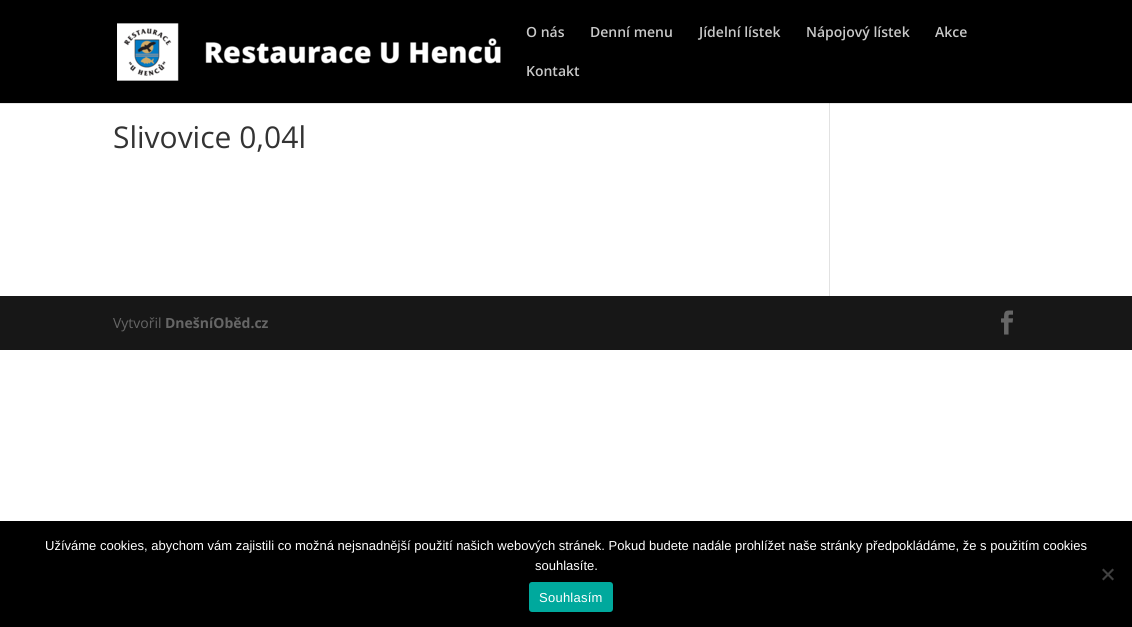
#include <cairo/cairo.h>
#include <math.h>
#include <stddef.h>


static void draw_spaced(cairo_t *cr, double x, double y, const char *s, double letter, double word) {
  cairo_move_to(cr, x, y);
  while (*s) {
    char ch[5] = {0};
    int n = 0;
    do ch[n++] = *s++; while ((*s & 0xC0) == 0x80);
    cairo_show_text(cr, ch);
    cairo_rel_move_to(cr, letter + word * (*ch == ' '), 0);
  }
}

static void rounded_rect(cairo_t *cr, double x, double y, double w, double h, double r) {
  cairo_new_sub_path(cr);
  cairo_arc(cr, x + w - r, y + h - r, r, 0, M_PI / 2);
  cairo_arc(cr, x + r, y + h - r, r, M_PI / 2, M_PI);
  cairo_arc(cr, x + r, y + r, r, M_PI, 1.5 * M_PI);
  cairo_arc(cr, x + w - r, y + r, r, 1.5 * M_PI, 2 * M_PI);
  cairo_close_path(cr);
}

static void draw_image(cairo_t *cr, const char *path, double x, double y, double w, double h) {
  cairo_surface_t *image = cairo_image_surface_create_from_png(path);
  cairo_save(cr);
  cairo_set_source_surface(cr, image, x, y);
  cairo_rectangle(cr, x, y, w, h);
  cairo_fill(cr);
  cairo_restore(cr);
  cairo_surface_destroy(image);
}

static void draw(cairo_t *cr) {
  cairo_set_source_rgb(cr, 1, 1, 1);
  cairo_paint(cr);
  cairo_set_source_rgb(cr, 230 / 255.0, 230 / 255.0, 230 / 255.0);
  cairo_rectangle(cr, 0, 103, 1132, 1);
  cairo_fill(cr);
  cairo_set_source_rgb(cr, 0, 0, 0);
  cairo_rectangle(cr, 0, 0, 1132, 103);
  cairo_fill(cr);
  draw_image(cr, "images/1.png", 117, 23, 384, 58);
  cairo_set_source_rgb(cr, 226 / 255.0, 226 / 255.0, 226 / 255.0);
  cairo_rectangle(cr, 829, 104, 1, 192);
  cairo_fill(cr);
  cairo_set_source_rgb(cr, 203 / 255.0, 203 / 255.0, 203 / 255.0);
  cairo_rectangle(cr, 829, 103, 1, 1);
  cairo_fill(cr);
  cairo_set_source_rgb(cr, 23 / 255.0, 23 / 255.0, 23 / 255.0);
  cairo_rectangle(cr, 0, 296, 1132, 54);
  cairo_fill(cr);
  draw_image(cr, "images/2.png", 1001, 310, 12, 25);
  cairo_set_source_rgb(cr, 0, 0, 0);
  cairo_rectangle(cr, 0, 521, 1132, 106);
  cairo_fill(cr);
  cairo_set_source_rgb(cr, 64 / 255.0, 64 / 255.0, 64 / 255.0);
  cairo_new_path(cr);
  cairo_move_to(cr, 1112.5, 568.5);
  cairo_line_to(cr, 1114, 570);
  cairo_line_to(cr, 1103.5, 580.5);
  cairo_line_to(cr, 1102, 579);
  cairo_close_path(cr);
  cairo_fill(cr);
  cairo_new_path(cr);
  cairo_move_to(cr, 1102, 570);
  cairo_line_to(cr, 1103.5, 568.5);
  cairo_line_to(cr, 1114, 579);
  cairo_line_to(cr, 1112.5, 580.5);
  cairo_close_path(cr);
  cairo_fill(cr);
  cairo_set_source_rgb(cr, 0, 169 / 255.0, 157 / 255.0);
  rounded_rect(cr, 529, 582, 84, 30, 3);
  cairo_fill(cr);
  cairo_select_font_face(cr, "Open Sans SemiBold", CAIRO_FONT_SLANT_NORMAL, CAIRO_FONT_WEIGHT_NORMAL);
  cairo_set_font_size(cr, 14);
  cairo_set_source_rgb(cr, 201 / 255.0, 201 / 255.0, 201 / 255.0);
  cairo_move_to(cr, 526, 37);
  cairo_show_text(cr, "O nás");
  cairo_move_to(cr, 590, 37);
  cairo_show_text(cr, "Denní menu");
  cairo_move_to(cr, 699, 37);
  cairo_show_text(cr, "Jídelní lístek");
  cairo_move_to(cr, 806, 37);
  cairo_show_text(cr, "Nápojový lístek");
  cairo_move_to(cr, 935, 37);
  cairo_show_text(cr, "Akce");
  cairo_move_to(cr, 526, 76);
  cairo_show_text(cr, "Kontakt");
  cairo_select_font_face(cr, "Open Sans", CAIRO_FONT_SLANT_NORMAL, CAIRO_FONT_WEIGHT_NORMAL);
  cairo_set_font_size(cr, 30);
  cairo_set_source_rgb(cr, 51 / 255.0, 51 / 255.0, 51 / 255.0);
  cairo_move_to(cr, 113, 148);
  cairo_show_text(cr, "Slivovice 0,04l");
  cairo_set_font_size(cr, 14);
  cairo_set_source_rgb(cr, 102 / 255.0, 102 / 255.0, 102 / 255.0);
  cairo_move_to(cr, 113, 328);
  cairo_show_text(cr, "Vytvořil");
  cairo_select_font_face(cr, "Open Sans", CAIRO_FONT_SLANT_NORMAL, CAIRO_FONT_WEIGHT_BOLD);
  cairo_move_to(cr, 165, 328);
  cairo_show_text(cr, "DnešníOběd.cz");
  cairo_select_font_face(cr, "Liberation Sans", CAIRO_FONT_SLANT_NORMAL, CAIRO_FONT_WEIGHT_NORMAL);
  cairo_set_font_size(cr, 13);
  cairo_set_source_rgb(cr, 1, 1, 1);
  cairo_move_to(cr, 45, 550);
  cairo_show_text(cr, "Užíváme cookies, abychom vám zajistili co možná nejsnadnější použití našich webových stránek. Pokud budete nadále prohlížet naše stránky předpokládáme, že s použitím cookies");
  cairo_move_to(cr, 535, 570);
  cairo_show_text(cr, "souhlasíte.");
  draw_spaced(cr, 539, 602, "Souhlasím", 0.25, 0);
}

int main(void) {
  cairo_surface_t *surface = cairo_image_surface_create(CAIRO_FORMAT_RGB24, 1132, 627);
  cairo_t *cr = cairo_create(surface);
  cairo_font_options_t *options = cairo_font_options_create();
  cairo_font_options_set_hint_metrics(options, CAIRO_HINT_METRICS_OFF);
  cairo_font_options_set_hint_style(options, CAIRO_HINT_STYLE_NONE);
  cairo_set_font_options(cr, options);
  cairo_set_miter_limit(cr, 4);
  draw(cr);
  cairo_surface_write_to_png(surface, "out.png");
  cairo_font_options_destroy(options);
  cairo_destroy(cr);
  cairo_surface_destroy(surface);
  return 0;
}
